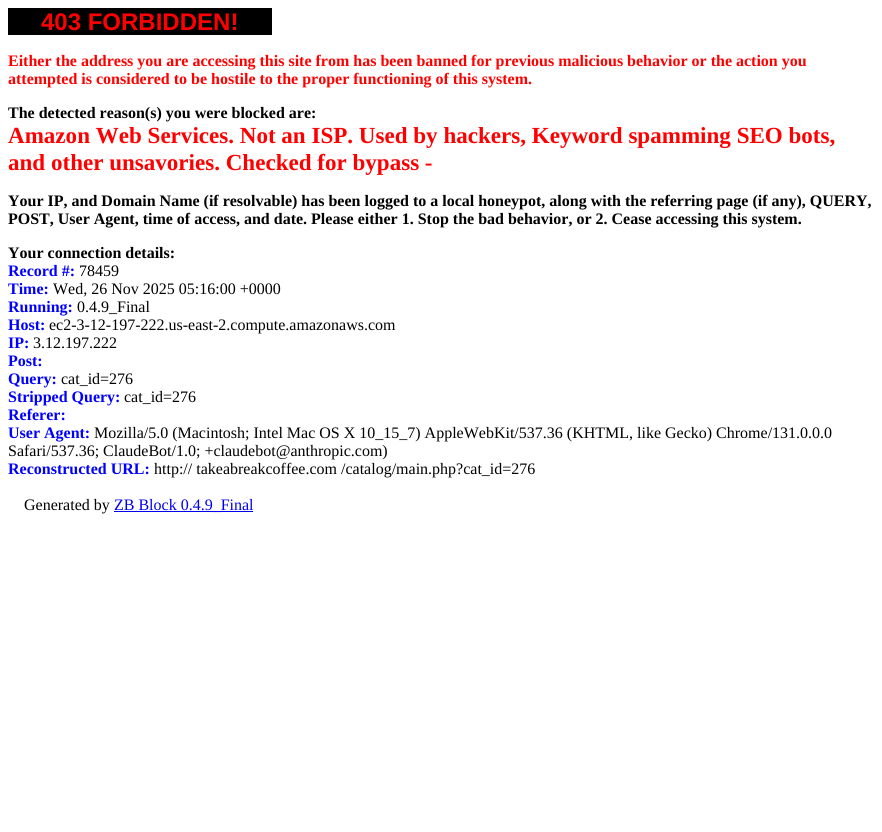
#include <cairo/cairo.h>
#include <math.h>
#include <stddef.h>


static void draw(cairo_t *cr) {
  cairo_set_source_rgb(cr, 1, 1, 1);
  cairo_paint(cr);
  cairo_set_source_rgb(cr, 0, 0, 0);
  cairo_rectangle(cr, 8, 8, 264, 27);
  cairo_fill(cr);
  cairo_set_source_rgb(cr, 0, 0, 238 / 255.0);
  cairo_rectangle(cr, 114, 511, 139, 1);
  cairo_fill(cr);
  cairo_select_font_face(cr, "Liberation Sans", CAIRO_FONT_SLANT_NORMAL, CAIRO_FONT_WEIGHT_BOLD);
  cairo_set_font_size(cr, 24);
  cairo_set_source_rgb(cr, 1, 0, 0);
  cairo_move_to(cr, 41, 30);
  cairo_show_text(cr, "403 FORBIDDEN!");
  cairo_select_font_face(cr, "Liberation Serif", CAIRO_FONT_SLANT_NORMAL, CAIRO_FONT_WEIGHT_BOLD);
  cairo_set_font_size(cr, 16);
  cairo_move_to(cr, 8, 66);
  cairo_show_text(cr, "Either the address you are accessing this site from has been banned for previous malicious behavior or the action you");
  cairo_move_to(cr, 8, 84);
  cairo_show_text(cr, "attempted is considered to be hostile to the proper functioning of this system.");
  cairo_set_source_rgb(cr, 0, 0, 0);
  cairo_move_to(cr, 8, 118);
  cairo_show_text(cr, "The detected reason(s) you were blocked are:");
  cairo_set_font_size(cr, 23.05);
  cairo_set_source_rgb(cr, 1, 0, 0);
  cairo_move_to(cr, 8, 143);
  cairo_show_text(cr, "Amazon Web Services. Not an ISP. Used by hackers, Keyword spamming SEO bots,");
  cairo_move_to(cr, 8, 170);
  cairo_show_text(cr, "and other unsavories. Checked for bypass -");
  cairo_set_font_size(cr, 16);
  cairo_set_source_rgb(cr, 0, 0, 0);
  cairo_move_to(cr, 8, 206);
  cairo_show_text(cr, "Your IP, and Domain Name (if resolvable) has been logged to a local honeypot, along with the referring page (if any), QUERY,");
  cairo_move_to(cr, 8, 224);
  cairo_show_text(cr, "POST, User Agent, time of access, and date. Please either 1. Stop the bad behavior, or 2. Cease accessing this system.");
  cairo_move_to(cr, 8, 258);
  cairo_show_text(cr, "Your connection details:");
  cairo_set_source_rgb(cr, 0, 0, 1);
  cairo_move_to(cr, 8, 276);
  cairo_show_text(cr, "Record #:");
  cairo_select_font_face(cr, "Liberation Serif", CAIRO_FONT_SLANT_NORMAL, CAIRO_FONT_WEIGHT_NORMAL);
  cairo_set_source_rgb(cr, 0, 0, 0);
  cairo_move_to(cr, 79, 276);
  cairo_show_text(cr, "78459");
  cairo_select_font_face(cr, "Liberation Serif", CAIRO_FONT_SLANT_NORMAL, CAIRO_FONT_WEIGHT_BOLD);
  cairo_set_source_rgb(cr, 0, 0, 1);
  cairo_move_to(cr, 8, 294);
  cairo_show_text(cr, "Time:");
  cairo_select_font_face(cr, "Liberation Serif", CAIRO_FONT_SLANT_NORMAL, CAIRO_FONT_WEIGHT_NORMAL);
  cairo_set_source_rgb(cr, 0, 0, 0);
  cairo_move_to(cr, 53, 294);
  cairo_show_text(cr, "Wed, 26 Nov 2025 05:16:00 +0000");
  cairo_select_font_face(cr, "Liberation Serif", CAIRO_FONT_SLANT_NORMAL, CAIRO_FONT_WEIGHT_BOLD);
  cairo_set_source_rgb(cr, 0, 0, 1);
  cairo_move_to(cr, 8, 312);
  cairo_show_text(cr, "Running:");
  cairo_select_font_face(cr, "Liberation Serif", CAIRO_FONT_SLANT_NORMAL, CAIRO_FONT_WEIGHT_NORMAL);
  cairo_set_source_rgb(cr, 0, 0, 0);
  cairo_move_to(cr, 77, 312);
  cairo_show_text(cr, "0.4.9_Final");
  cairo_select_font_face(cr, "Liberation Serif", CAIRO_FONT_SLANT_NORMAL, CAIRO_FONT_WEIGHT_BOLD);
  cairo_set_source_rgb(cr, 0, 0, 1);
  cairo_move_to(cr, 8, 330);
  cairo_show_text(cr, "Host:");
  cairo_select_font_face(cr, "Liberation Serif", CAIRO_FONT_SLANT_NORMAL, CAIRO_FONT_WEIGHT_NORMAL);
  cairo_set_source_rgb(cr, 0, 0, 0);
  cairo_move_to(cr, 49, 330);
  cairo_show_text(cr, "ec2-3-12-197-222.us-east-2.compute.amazonaws.com");
  cairo_select_font_face(cr, "Liberation Serif", CAIRO_FONT_SLANT_NORMAL, CAIRO_FONT_WEIGHT_BOLD);
  cairo_set_source_rgb(cr, 0, 0, 1);
  cairo_move_to(cr, 8, 348);
  cairo_show_text(cr, "IP:");
  cairo_select_font_face(cr, "Liberation Serif", CAIRO_FONT_SLANT_NORMAL, CAIRO_FONT_WEIGHT_NORMAL);
  cairo_set_source_rgb(cr, 0, 0, 0);
  cairo_move_to(cr, 33, 348);
  cairo_show_text(cr, "3.12.197.222");
  cairo_select_font_face(cr, "Liberation Serif", CAIRO_FONT_SLANT_NORMAL, CAIRO_FONT_WEIGHT_BOLD);
  cairo_set_source_rgb(cr, 0, 0, 1);
  cairo_move_to(cr, 8, 366);
  cairo_show_text(cr, "Post:");
  cairo_move_to(cr, 8, 384);
  cairo_show_text(cr, "Query:");
  cairo_select_font_face(cr, "Liberation Serif", CAIRO_FONT_SLANT_NORMAL, CAIRO_FONT_WEIGHT_NORMAL);
  cairo_set_source_rgb(cr, 0, 0, 0);
  cairo_move_to(cr, 61, 384);
  cairo_show_text(cr, "cat_id=276");
  cairo_select_font_face(cr, "Liberation Serif", CAIRO_FONT_SLANT_NORMAL, CAIRO_FONT_WEIGHT_BOLD);
  cairo_set_source_rgb(cr, 0, 0, 1);
  cairo_move_to(cr, 8, 402);
  cairo_show_text(cr, "Stripped Query:");
  cairo_select_font_face(cr, "Liberation Serif", CAIRO_FONT_SLANT_NORMAL, CAIRO_FONT_WEIGHT_NORMAL);
  cairo_set_source_rgb(cr, 0, 0, 0);
  cairo_move_to(cr, 124, 402);
  cairo_show_text(cr, "cat_id=276");
  cairo_select_font_face(cr, "Liberation Serif", CAIRO_FONT_SLANT_NORMAL, CAIRO_FONT_WEIGHT_BOLD);
  cairo_set_source_rgb(cr, 0, 0, 1);
  cairo_move_to(cr, 8, 420);
  cairo_show_text(cr, "Referer:");
  cairo_move_to(cr, 8, 438);
  cairo_show_text(cr, "User Agent:");
  cairo_select_font_face(cr, "Liberation Serif", CAIRO_FONT_SLANT_NORMAL, CAIRO_FONT_WEIGHT_NORMAL);
  cairo_set_source_rgb(cr, 0, 0, 0);
  cairo_move_to(cr, 94, 438);
  cairo_show_text(cr, "Mozilla/5.0 (Macintosh; Intel Mac OS X 10_15_7) AppleWebKit/537.36 (KHTML, like Gecko) Chrome/131.0.0.0");
  cairo_move_to(cr, 8, 456);
  cairo_show_text(cr, "Safari/537.36; ClaudeBot/1.0; +claudebot@anthropic.com)");
  cairo_select_font_face(cr, "Liberation Serif", CAIRO_FONT_SLANT_NORMAL, CAIRO_FONT_WEIGHT_BOLD);
  cairo_set_source_rgb(cr, 0, 0, 1);
  cairo_move_to(cr, 8, 474);
  cairo_show_text(cr, "Reconstructed URL:");
  cairo_select_font_face(cr, "Liberation Serif", CAIRO_FONT_SLANT_NORMAL, CAIRO_FONT_WEIGHT_NORMAL);
  cairo_set_source_rgb(cr, 0, 0, 0);
  cairo_move_to(cr, 154, 474);
  cairo_show_text(cr, "http:// takeabreakcoffee.com /catalog/main.php?cat_id=276");
  cairo_move_to(cr, 24, 510);
  cairo_show_text(cr, "Generated by");
  cairo_set_source_rgb(cr, 0, 0, 238 / 255.0);
  cairo_move_to(cr, 114, 510);
  cairo_show_text(cr, "ZB Block 0.4.9_Final");
}

int main(void) {
  cairo_surface_t *surface = cairo_image_surface_create(CAIRO_FORMAT_RGB24, 882, 832);
  cairo_t *cr = cairo_create(surface);
  cairo_font_options_t *options = cairo_font_options_create();
  cairo_font_options_set_hint_metrics(options, CAIRO_HINT_METRICS_OFF);
  cairo_font_options_set_hint_style(options, CAIRO_HINT_STYLE_NONE);
  cairo_set_font_options(cr, options);
  cairo_set_miter_limit(cr, 4);
  draw(cr);
  cairo_surface_write_to_png(surface, "out.png");
  cairo_font_options_destroy(options);
  cairo_destroy(cr);
  cairo_surface_destroy(surface);
  return 0;
}
